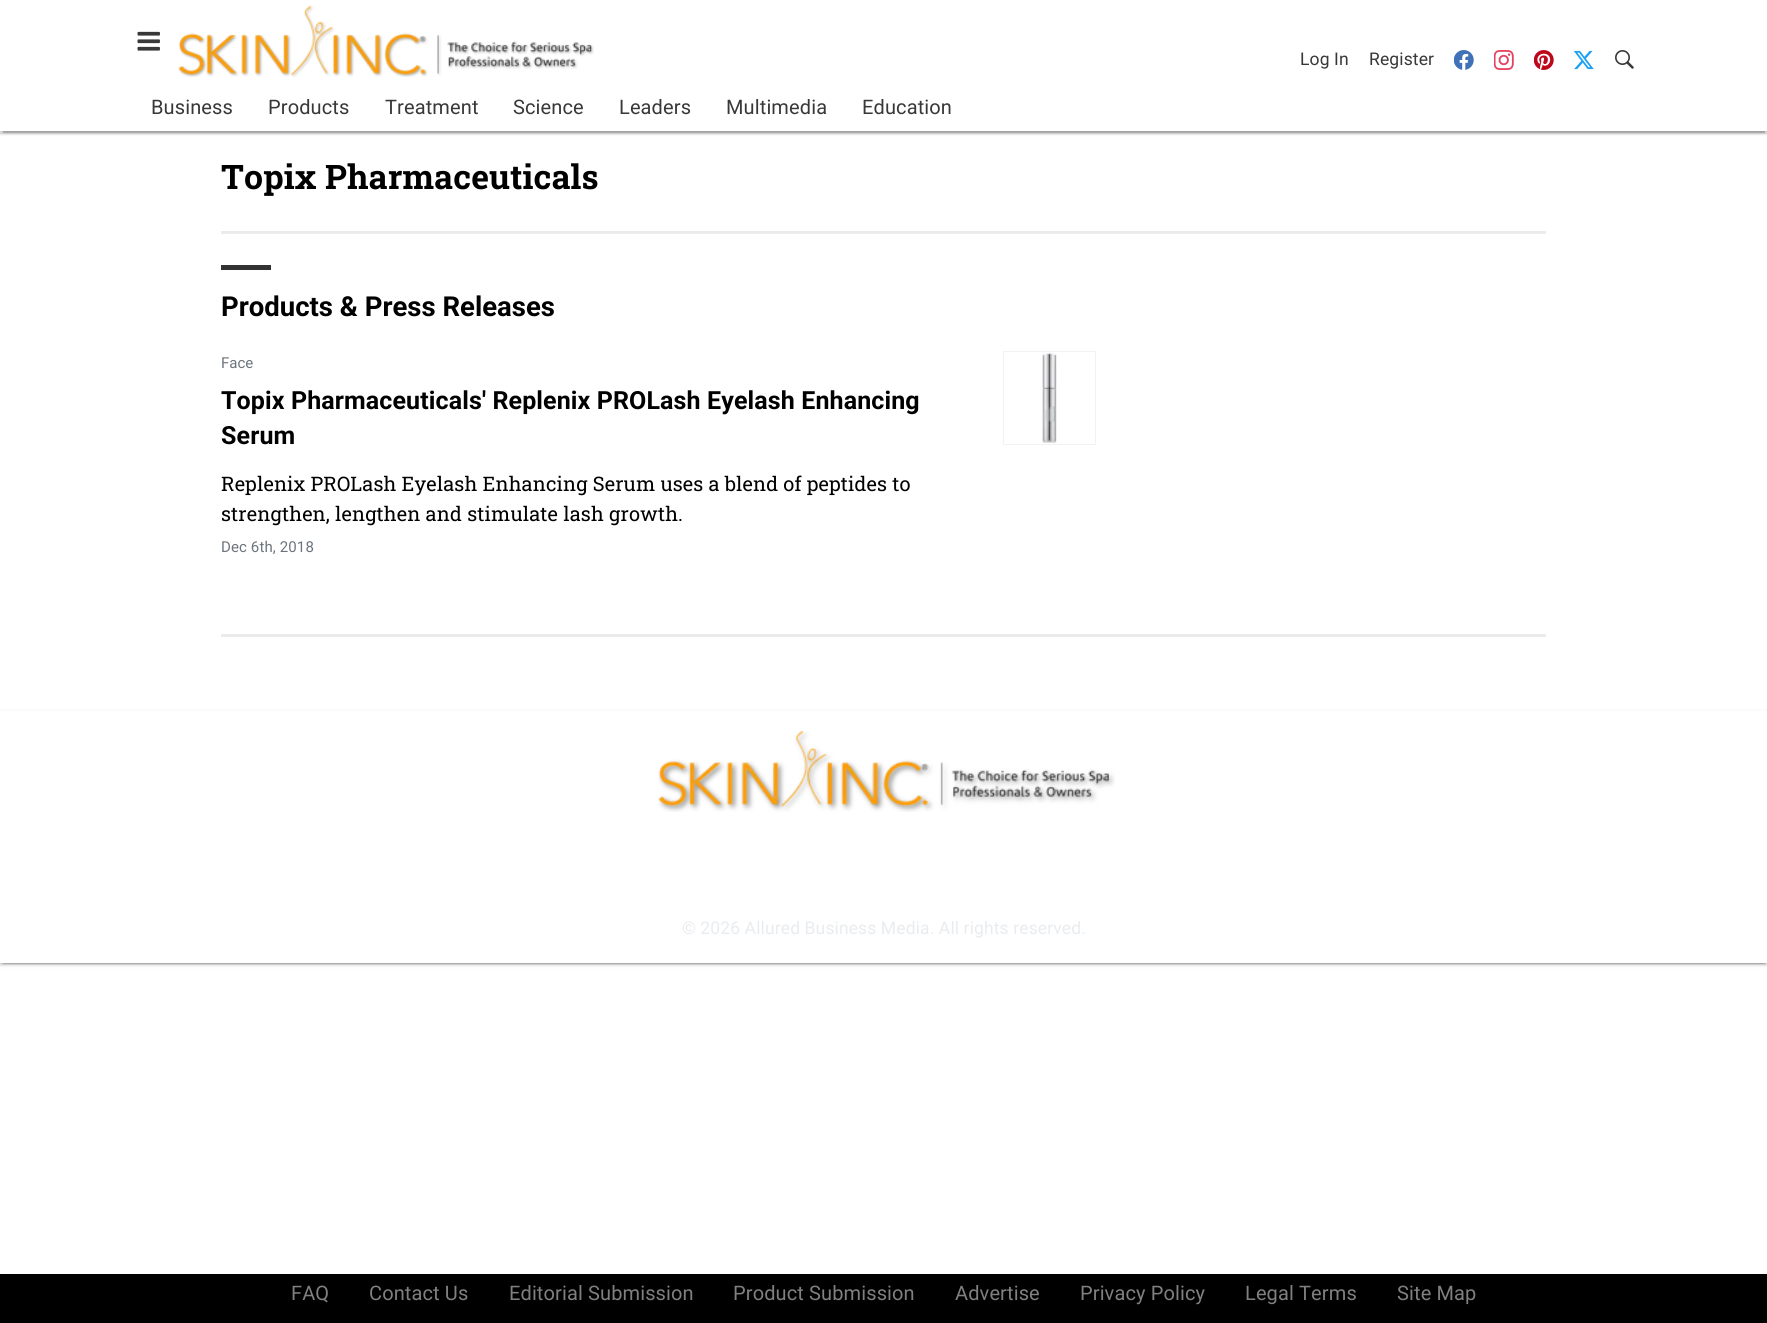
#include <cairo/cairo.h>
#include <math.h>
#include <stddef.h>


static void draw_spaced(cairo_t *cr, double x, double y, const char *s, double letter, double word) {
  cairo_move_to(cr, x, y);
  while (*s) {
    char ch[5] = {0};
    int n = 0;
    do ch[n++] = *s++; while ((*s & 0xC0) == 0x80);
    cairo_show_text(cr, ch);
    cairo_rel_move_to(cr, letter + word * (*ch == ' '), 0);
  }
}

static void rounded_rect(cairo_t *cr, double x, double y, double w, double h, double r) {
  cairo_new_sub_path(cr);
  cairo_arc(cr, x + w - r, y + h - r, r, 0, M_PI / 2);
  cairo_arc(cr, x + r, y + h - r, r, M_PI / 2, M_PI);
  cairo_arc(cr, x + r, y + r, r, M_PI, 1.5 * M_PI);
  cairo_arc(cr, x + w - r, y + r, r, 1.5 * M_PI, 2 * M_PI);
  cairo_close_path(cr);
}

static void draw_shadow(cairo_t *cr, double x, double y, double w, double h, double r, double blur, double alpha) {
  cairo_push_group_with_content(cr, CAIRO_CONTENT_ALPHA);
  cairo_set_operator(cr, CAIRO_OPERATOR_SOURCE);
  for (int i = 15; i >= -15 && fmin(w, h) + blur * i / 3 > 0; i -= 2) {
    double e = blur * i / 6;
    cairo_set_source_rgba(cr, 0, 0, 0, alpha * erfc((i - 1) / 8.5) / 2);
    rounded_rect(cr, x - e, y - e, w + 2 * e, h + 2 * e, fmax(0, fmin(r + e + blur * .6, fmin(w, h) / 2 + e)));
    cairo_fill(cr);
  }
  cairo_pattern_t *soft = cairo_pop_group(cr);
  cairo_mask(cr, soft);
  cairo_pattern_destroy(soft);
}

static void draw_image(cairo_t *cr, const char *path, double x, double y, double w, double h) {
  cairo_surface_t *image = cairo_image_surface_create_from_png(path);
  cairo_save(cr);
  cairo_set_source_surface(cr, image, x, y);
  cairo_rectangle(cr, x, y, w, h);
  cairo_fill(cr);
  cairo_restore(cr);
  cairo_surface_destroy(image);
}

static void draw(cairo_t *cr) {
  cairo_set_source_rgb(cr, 1, 1, 1);
  cairo_paint(cr);
  cairo_save(cr);
  cairo_rectangle(cr, 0, 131, 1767, 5);
  cairo_clip(cr);
  cairo_set_source_rgb(cr, 0, 0, 0);
  draw_shadow(cr, 0, 1, 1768, 132, 0, 3, 0.12);
  cairo_restore(cr);
  cairo_save(cr);
  cairo_rectangle(cr, 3, 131, 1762, 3);
  cairo_clip(cr);
  cairo_set_source_rgb(cr, 0, 0, 0);
  draw_shadow(cr, 3, 6, 1762, 127, 0, 0.5, 0.2);
  cairo_restore(cr);
  cairo_save(cr);
  cairo_rectangle(cr, 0, 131, 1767, 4);
  cairo_clip(cr);
  cairo_set_source_rgb(cr, 0, 0, 0);
  draw_shadow(cr, 0, 3, 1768, 131, 0, 1, 0.14);
  cairo_restore(cr);
  draw_image(cr, "images/1.png", 137, 31, 23, 20);
  draw_image(cr, "images/2.png", 178, 6, 416, 71);
  draw_image(cr, "images/3.png", 1454, 50, 20, 20);
  draw_image(cr, "images/4.png", 1494, 50, 20, 20);
  draw_image(cr, "images/5.png", 1534, 50, 20, 20);
  draw_image(cr, "images/6.png", 1574, 50, 20, 20);
  draw_image(cr, "images/7.png", 1615, 50, 19, 19);
  cairo_set_source_rgb(cr, 235 / 255.0, 235 / 255.0, 235 / 255.0);
  cairo_rectangle(cr, 221, 231, 1325, 3);
  cairo_fill(cr);
  cairo_rectangle(cr, 221, 634, 1325, 3);
  cairo_fill(cr);
  cairo_set_source_rgb(cr, 51 / 255.0, 51 / 255.0, 51 / 255.0);
  cairo_rectangle(cr, 221, 265, 50, 5);
  cairo_fill(cr);
  cairo_rectangle(cr, 1003.5, 351.5, 92, 93);
  cairo_set_source_rgb(cr, 242 / 255.0, 242 / 255.0, 242 / 255.0);
  cairo_set_line_width(cr, 1);
  cairo_stroke(cr);
  draw_image(cr, "images/8.png", 1042, 352, 15, 92);
  cairo_set_source_rgb(cr, 0, 0, 0);
  draw_shadow(cr, 0, 713, 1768, 251, 0, 3, 0.12);
  draw_shadow(cr, 3, 718, 1762, 246, 0, 0.5, 0.2);
  draw_shadow(cr, 0, 714, 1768, 251, 0, 1, 0.14);
  cairo_set_source_rgb(cr, 1, 1, 1);
  cairo_rectangle(cr, 0, 711, 1767, 252);
  cairo_fill(cr);
  draw_image(cr, "images/9.png", 658, 731, 457, 81);
  cairo_set_source_rgb(cr, 0, 0, 0);
  cairo_rectangle(cr, 0, 1274, 1767, 49);
  cairo_fill(cr);
  cairo_select_font_face(cr, "Roboto", CAIRO_FONT_SLANT_NORMAL, CAIRO_FONT_WEIGHT_NORMAL);
  cairo_set_font_size(cr, 17.5);
  cairo_set_source_rgb(cr, 56 / 255.0, 56 / 255.0, 56 / 255.0);
  draw_spaced(cr, 1300, 65, "Log In", 0.12, 0);
  draw_spaced(cr, 1369, 65, "Register", 0.12, 0);
  cairo_set_font_size(cr, 20);
  draw_spaced(cr, 151, 114, "Business", 0.12, 0);
  draw_spaced(cr, 268, 114, "Products", 0.12, 0);
  draw_spaced(cr, 385, 114, "Treatment", 0.12, 0);
  draw_spaced(cr, 513, 114, "Science", 0.12, 0);
  draw_spaced(cr, 619, 114, "Leaders", 0.12, 0);
  draw_spaced(cr, 726, 114, "Multimedia", 0.12, 0);
  draw_spaced(cr, 862, 114, "Education", 0.12, 0);
  cairo_select_font_face(cr, "Roboto Slab", CAIRO_FONT_SLANT_NORMAL, CAIRO_FONT_WEIGHT_BOLD);
  cairo_set_font_size(cr, 33.75);
  cairo_set_source_rgb(cr, 0, 0, 0);
  draw_spaced(cr, 221, 189, "Topix Pharmaceuticals", 0.12, 0);
  cairo_select_font_face(cr, "Roboto", CAIRO_FONT_SLANT_NORMAL, CAIRO_FONT_WEIGHT_BOLD);
  cairo_set_font_size(cr, 27.5);
  cairo_move_to(cr, 221, 316);
  cairo_show_text(cr, "Products & Press Releases");
  cairo_select_font_face(cr, "Roboto", CAIRO_FONT_SLANT_NORMAL, CAIRO_FONT_WEIGHT_NORMAL);
  cairo_set_font_size(cr, 15);
  cairo_set_source_rgb(cr, 108 / 255.0, 117 / 255.0, 125 / 255.0);
  cairo_move_to(cr, 221, 368);
  cairo_show_text(cr, "Face");
  cairo_select_font_face(cr, "Roboto", CAIRO_FONT_SLANT_NORMAL, CAIRO_FONT_WEIGHT_BOLD);
  cairo_set_font_size(cr, 25);
  cairo_set_source_rgb(cr, 0, 0, 0);
  draw_spaced(cr, 221, 409, "Topix Pharmaceuticals' Replenix PROLash Eyelash Enhancing", 0.12, 0);
  draw_spaced(cr, 221, 444, "Serum", 0.12, 0);
  cairo_select_font_face(cr, "Roboto Slab", CAIRO_FONT_SLANT_NORMAL, CAIRO_FONT_WEIGHT_NORMAL);
  cairo_set_font_size(cr, 20);
  draw_spaced(cr, 221, 491, "Replenix PROLash Eyelash Enhancing Serum uses a blend of peptides to", 0.12, 0);
  draw_spaced(cr, 221, 521, "strengthen, lengthen and stimulate lash growth.", 0.12, 0);
  cairo_select_font_face(cr, "Roboto", CAIRO_FONT_SLANT_NORMAL, CAIRO_FONT_WEIGHT_NORMAL);
  cairo_set_font_size(cr, 15);
  cairo_set_source_rgb(cr, 108 / 255.0, 117 / 255.0, 125 / 255.0);
  draw_spaced(cr, 221, 552, "Dec 6th, 2018", 0.12, 0);
  cairo_set_font_size(cr, 17.5);
  cairo_set_source_rgb(cr, 233 / 255.0, 236 / 255.0, 239 / 255.0);
  draw_spaced(cr, 682, 934, "© 2026 Allured Business Media. All rights reserved.", 0.12, 0);
  cairo_set_font_size(cr, 20);
  cairo_set_source_rgb(cr, 128 / 255.0, 128 / 255.0, 128 / 255.0);
  draw_spaced(cr, 291, 1300, "FAQ", 0.12, 0);
  draw_spaced(cr, 369, 1300, "Contact Us", 0.12, 0);
  draw_spaced(cr, 509, 1300, "Editorial Submission", 0.12, 0);
  draw_spaced(cr, 733, 1300, "Product Submission", 0.12, 0);
  draw_spaced(cr, 955, 1300, "Advertise", 0.12, 0);
  draw_spaced(cr, 1080, 1300, "Privacy Policy", 0.12, 0);
  draw_spaced(cr, 1245, 1300, "Legal Terms", 0.12, 0);
  draw_spaced(cr, 1397, 1300, "Site Map", 0.12, 0);
}

int main(void) {
  cairo_surface_t *surface = cairo_image_surface_create(CAIRO_FORMAT_RGB24, 1767, 1323);
  cairo_t *cr = cairo_create(surface);
  cairo_font_options_t *options = cairo_font_options_create();
  cairo_font_options_set_hint_metrics(options, CAIRO_HINT_METRICS_OFF);
  cairo_font_options_set_hint_style(options, CAIRO_HINT_STYLE_NONE);
  cairo_set_font_options(cr, options);
  cairo_set_miter_limit(cr, 4);
  draw(cr);
  cairo_surface_write_to_png(surface, "out.png");
  cairo_font_options_destroy(options);
  cairo_destroy(cr);
  cairo_surface_destroy(surface);
  return 0;
}
